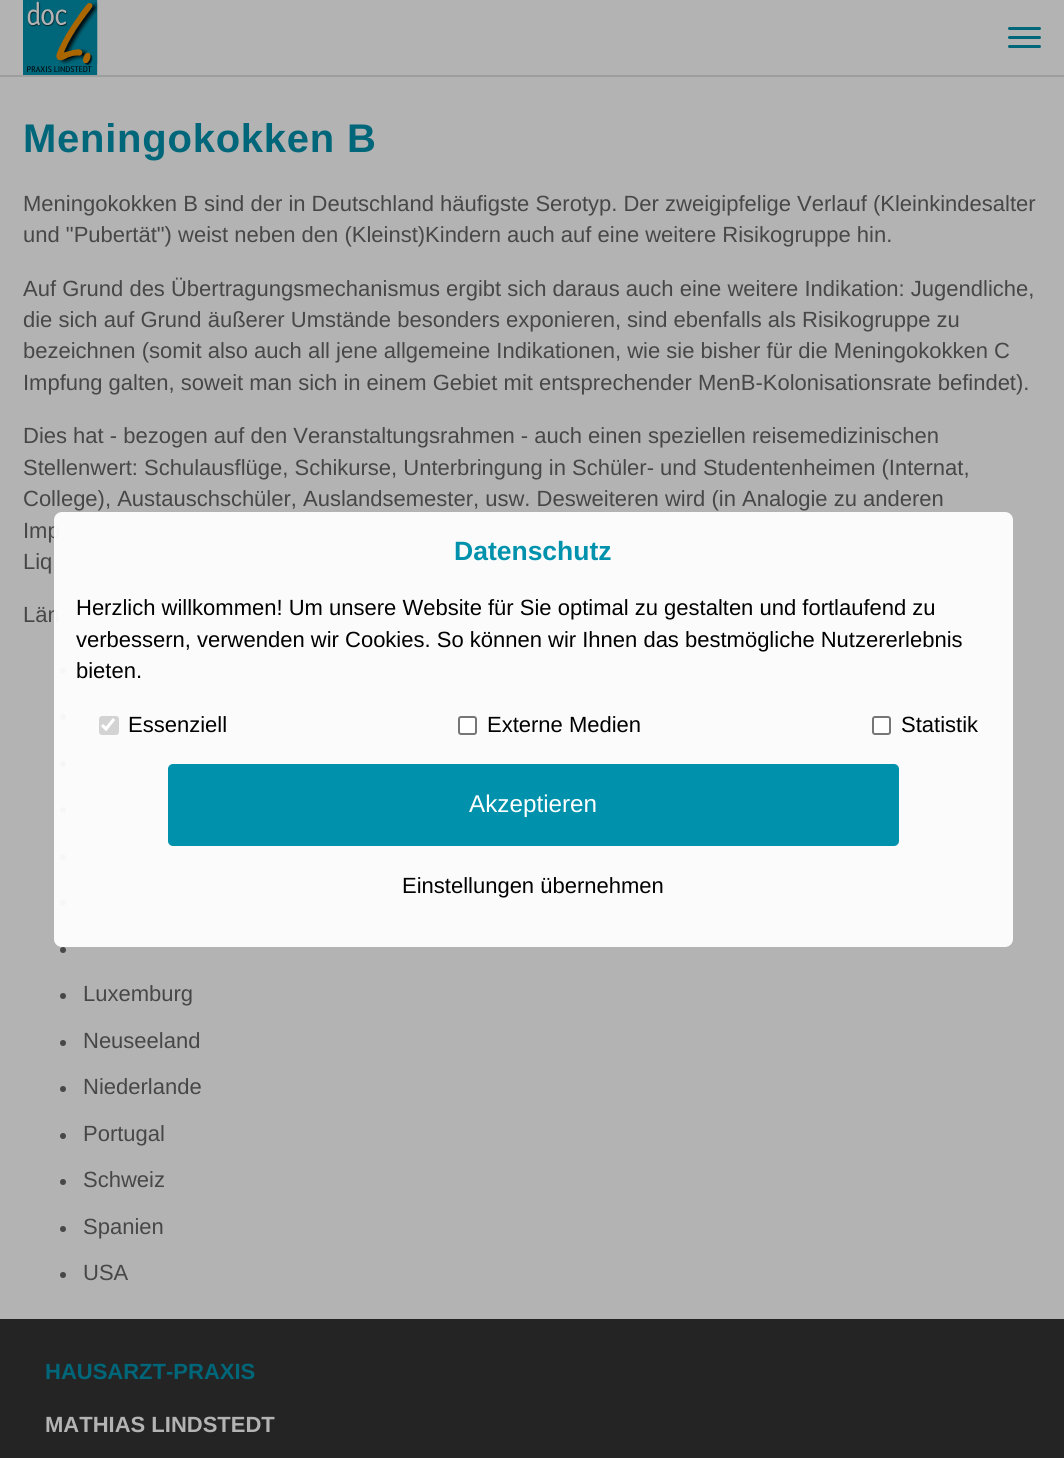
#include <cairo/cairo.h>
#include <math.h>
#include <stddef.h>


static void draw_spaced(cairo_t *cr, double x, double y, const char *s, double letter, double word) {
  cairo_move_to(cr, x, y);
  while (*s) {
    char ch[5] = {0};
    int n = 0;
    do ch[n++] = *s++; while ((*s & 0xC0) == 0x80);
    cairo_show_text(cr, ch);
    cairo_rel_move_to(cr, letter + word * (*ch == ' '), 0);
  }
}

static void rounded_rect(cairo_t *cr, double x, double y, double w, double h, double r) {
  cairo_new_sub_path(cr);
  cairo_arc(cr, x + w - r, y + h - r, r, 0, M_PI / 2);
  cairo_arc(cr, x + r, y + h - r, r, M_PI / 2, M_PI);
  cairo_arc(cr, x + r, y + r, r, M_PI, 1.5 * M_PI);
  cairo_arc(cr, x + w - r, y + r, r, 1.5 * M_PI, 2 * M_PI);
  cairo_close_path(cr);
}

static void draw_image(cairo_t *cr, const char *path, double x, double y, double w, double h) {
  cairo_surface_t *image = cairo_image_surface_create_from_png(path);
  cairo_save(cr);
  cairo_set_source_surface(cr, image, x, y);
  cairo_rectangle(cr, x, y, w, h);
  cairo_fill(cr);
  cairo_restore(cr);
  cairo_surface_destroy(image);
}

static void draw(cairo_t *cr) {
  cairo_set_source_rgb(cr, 179 / 255.0, 179 / 255.0, 179 / 255.0);
  cairo_paint(cr);
  cairo_set_source_rgb(cr, 158 / 255.0, 158 / 255.0, 158 / 255.0);
  cairo_rectangle(cr, 0, 75, 1064, 2);
  cairo_fill(cr);
  draw_image(cr, "images/1.png", 23, 0, 75, 75);
  cairo_set_source_rgb(cr, 0, 102 / 255.0, 121 / 255.0);
  rounded_rect(cr, 1008, 27, 33, 3, 1.5);
  cairo_fill(cr);
  rounded_rect(cr, 1008, 36, 33, 3, 1.5);
  cairo_fill(cr);
  rounded_rect(cr, 1008, 45, 33, 3, 1.5);
  cairo_fill(cr);
  cairo_set_source_rgb(cr, 71 / 255.0, 71 / 255.0, 71 / 255.0);
  cairo_arc(cr, 63, 671, 3, 0, 2 * M_PI);
  cairo_fill(cr);
  cairo_arc(cr, 63, 717, 3, 0, 2 * M_PI);
  cairo_fill(cr);
  cairo_arc(cr, 63, 764, 3, 0, 2 * M_PI);
  cairo_fill(cr);
  cairo_arc(cr, 63, 810, 3, 0, 2 * M_PI);
  cairo_fill(cr);
  cairo_arc(cr, 63, 857, 3, 0, 2 * M_PI);
  cairo_fill(cr);
  cairo_arc(cr, 63, 903, 3, 0, 2 * M_PI);
  cairo_fill(cr);
  cairo_arc(cr, 63, 950, 3, 0, 2 * M_PI);
  cairo_fill(cr);
  cairo_arc(cr, 63, 996, 3, 0, 2 * M_PI);
  cairo_fill(cr);
  cairo_arc(cr, 63, 1043, 3, 0, 2 * M_PI);
  cairo_fill(cr);
  cairo_arc(cr, 63, 1089, 3, 0, 2 * M_PI);
  cairo_fill(cr);
  cairo_arc(cr, 63, 1136, 3, 0, 2 * M_PI);
  cairo_fill(cr);
  cairo_arc(cr, 63, 1182, 3, 0, 2 * M_PI);
  cairo_fill(cr);
  cairo_arc(cr, 63, 1229, 3, 0, 2 * M_PI);
  cairo_fill(cr);
  cairo_arc(cr, 63, 1275, 3, 0, 2 * M_PI);
  cairo_fill(cr);
  cairo_set_source_rgb(cr, 36 / 255.0, 36 / 255.0, 36 / 255.0);
  cairo_rectangle(cr, 0, 1319, 1064, 139);
  cairo_fill(cr);
  cairo_select_font_face(cr, "Liberation Sans", CAIRO_FONT_SLANT_NORMAL, CAIRO_FONT_WEIGHT_BOLD);
  cairo_set_font_size(cr, 40);
  cairo_set_source_rgb(cr, 0, 102 / 255.0, 121 / 255.0);
  draw_spaced(cr, 23, 152, "Meningokokken B", 0.75, 0);
  cairo_select_font_face(cr, "Liberation Sans", CAIRO_FONT_SLANT_NORMAL, CAIRO_FONT_WEIGHT_NORMAL);
  cairo_set_font_size(cr, 22);
  cairo_set_source_rgb(cr, 71 / 255.0, 71 / 255.0, 71 / 255.0);
  cairo_move_to(cr, 23, 211);
  cairo_show_text(cr, "Meningokokken B sind der in Deutschland häufigste Serotyp. Der zweigipfelige Verlauf (Kleinkindesalter");
  cairo_move_to(cr, 23, 242);
  cairo_show_text(cr, "und \"Pubertät\") weist neben den (Kleinst)Kindern auch auf eine weitere Risikogruppe hin.");
  cairo_move_to(cr, 23, 296);
  cairo_show_text(cr, "Auf Grund des Übertragungsmechanismus ergibt sich daraus auch eine weitere Indikation: Jugendliche,");
  cairo_move_to(cr, 23, 327);
  cairo_show_text(cr, "die sich auf Grund äußerer Umstände besonders exponieren, sind ebenfalls als Risikogruppe zu");
  cairo_move_to(cr, 23, 358);
  cairo_show_text(cr, "bezeichnen (somit also auch all jene allgemeine Indikationen, wie sie bisher für die Meningokokken C");
  cairo_move_to(cr, 23, 390);
  cairo_show_text(cr, "Impfung galten, soweit man sich in einem Gebiet mit entsprechender MenB-Kolonisationsrate befindet).");
  cairo_move_to(cr, 23, 443);
  cairo_show_text(cr, "Dies hat - bezogen auf den Veranstaltungsrahmen - auch einen speziellen reisemedizinischen");
  cairo_move_to(cr, 23, 475);
  cairo_show_text(cr, "Stellenwert: Schulausflüge, Schikurse, Unterbringung in Schüler- und Studentenheimen (Internat,");
  cairo_move_to(cr, 23, 506);
  cairo_show_text(cr, "College), Austauschschüler, Auslandsemester, usw. Desweiteren wird (in Analogie zu anderen");
  cairo_move_to(cr, 23, 538);
  cairo_show_text(cr, "Imp");
  cairo_move_to(cr, 23, 569);
  cairo_show_text(cr, "Liq");
  cairo_move_to(cr, 23, 622);
  cairo_show_text(cr, "Län");
  cairo_move_to(cr, 83, 1001);
  cairo_show_text(cr, "Luxemburg");
  cairo_move_to(cr, 83, 1048);
  cairo_show_text(cr, "Neuseeland");
  cairo_move_to(cr, 83, 1094);
  cairo_show_text(cr, "Niederlande");
  cairo_move_to(cr, 83, 1141);
  cairo_show_text(cr, "Portugal");
  cairo_move_to(cr, 83, 1187);
  cairo_show_text(cr, "Schweiz");
  cairo_move_to(cr, 83, 1234);
  cairo_show_text(cr, "Spanien");
  cairo_move_to(cr, 83, 1280);
  cairo_show_text(cr, "USA");
  cairo_select_font_face(cr, "Liberation Sans", CAIRO_FONT_SLANT_NORMAL, CAIRO_FONT_WEIGHT_BOLD);
  cairo_set_source_rgb(cr, 0, 102 / 255.0, 121 / 255.0);
  cairo_move_to(cr, 45, 1379);
  cairo_show_text(cr, "HAUSARZT-PRAXIS");
  cairo_set_source_rgb(cr, 179 / 255.0, 179 / 255.0, 179 / 255.0);
  cairo_move_to(cr, 45, 1432);
  cairo_show_text(cr, "MATHIAS LINDSTEDT");
  cairo_set_source_rgba(cr, 1, 1, 1, 0.95);
  rounded_rect(cr, 54, 512, 959, 435, 8);
  cairo_fill(cr);
  cairo_set_font_size(cr, 26.5);
  cairo_set_source_rgb(cr, 0, 146 / 255.0, 173 / 255.0);
  cairo_move_to(cr, 454, 560);
  cairo_show_text(cr, "Datenschutz");
  cairo_select_font_face(cr, "Liberation Sans", CAIRO_FONT_SLANT_NORMAL, CAIRO_FONT_WEIGHT_NORMAL);
  cairo_set_font_size(cr, 22);
  cairo_set_source_rgb(cr, 0, 0, 0);
  cairo_move_to(cr, 76, 615);
  cairo_show_text(cr, "Herzlich willkommen! Um unsere Website für Sie optimal zu gestalten und fortlaufend zu");
  cairo_move_to(cr, 76, 647);
  cairo_show_text(cr, "verbessern, verwenden wir Cookies. So können wir Ihnen das bestmögliche Nutzererlebnis");
  cairo_move_to(cr, 76, 678);
  cairo_show_text(cr, "bieten.");
  cairo_set_source_rgba(cr, 118 / 255.0, 118 / 255.0, 118 / 255.0, 0.3);
  rounded_rect(cr, 99, 716, 20, 19, 3);
  cairo_fill(cr);
  cairo_new_path(cr);
  cairo_move_to(cr, 102, 725);
  cairo_line_to(cr, 106, 729);
  cairo_line_to(cr, 114, 719);
  cairo_set_source_rgb(cr, 1, 1, 1);
  cairo_set_line_width(cr, 3.1);
  cairo_stroke(cr);
  cairo_set_source_rgb(cr, 0, 0, 0);
  cairo_move_to(cr, 128, 732);
  cairo_show_text(cr, "Essenziell");
  cairo_set_source_rgb(cr, 1, 1, 1);
  rounded_rect(cr, 459, 717, 17, 17, 2);
  cairo_fill_preserve(cr);
  cairo_set_source_rgb(cr, 118 / 255.0, 118 / 255.0, 118 / 255.0);
  cairo_set_line_width(cr, 2);
  cairo_stroke(cr);
  cairo_set_source_rgb(cr, 0, 0, 0);
  cairo_move_to(cr, 487, 732);
  cairo_show_text(cr, "Externe Medien");
  cairo_set_source_rgb(cr, 1, 1, 1);
  rounded_rect(cr, 873, 717, 17, 17, 2);
  cairo_fill_preserve(cr);
  cairo_set_source_rgb(cr, 118 / 255.0, 118 / 255.0, 118 / 255.0);
  cairo_stroke(cr);
  cairo_set_source_rgb(cr, 0, 0, 0);
  cairo_move_to(cr, 901, 732);
  cairo_show_text(cr, "Statistik");
  cairo_set_source_rgb(cr, 0, 146 / 255.0, 173 / 255.0);
  rounded_rect(cr, 168, 764, 731, 82, 5);
  cairo_fill(cr);
  cairo_set_font_size(cr, 24.25);
  cairo_set_source_rgb(cr, 1, 1, 1);
  cairo_move_to(cr, 469, 812);
  cairo_show_text(cr, "Akzeptieren");
  cairo_set_font_size(cr, 22);
  cairo_set_source_rgb(cr, 0, 0, 0);
  cairo_move_to(cr, 402, 893);
  cairo_show_text(cr, "Einstellungen übernehmen");
}

int main(void) {
  cairo_surface_t *surface = cairo_image_surface_create(CAIRO_FORMAT_RGB24, 1064, 1458);
  cairo_t *cr = cairo_create(surface);
  cairo_font_options_t *options = cairo_font_options_create();
  cairo_font_options_set_hint_metrics(options, CAIRO_HINT_METRICS_OFF);
  cairo_font_options_set_hint_style(options, CAIRO_HINT_STYLE_NONE);
  cairo_set_font_options(cr, options);
  cairo_set_miter_limit(cr, 4);
  draw(cr);
  cairo_surface_write_to_png(surface, "out.png");
  cairo_font_options_destroy(options);
  cairo_destroy(cr);
  cairo_surface_destroy(surface);
  return 0;
}
